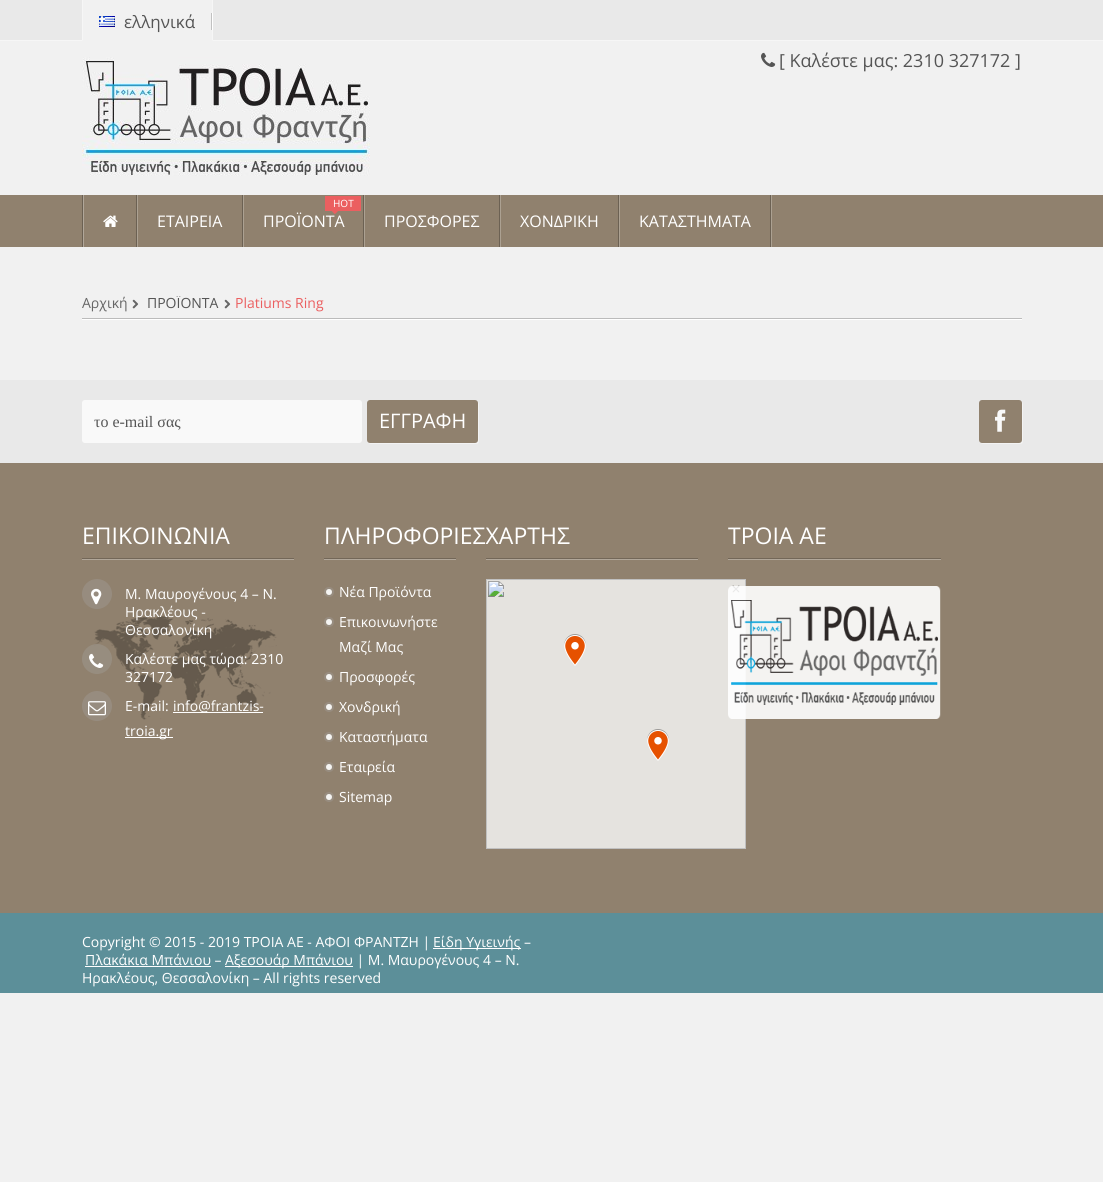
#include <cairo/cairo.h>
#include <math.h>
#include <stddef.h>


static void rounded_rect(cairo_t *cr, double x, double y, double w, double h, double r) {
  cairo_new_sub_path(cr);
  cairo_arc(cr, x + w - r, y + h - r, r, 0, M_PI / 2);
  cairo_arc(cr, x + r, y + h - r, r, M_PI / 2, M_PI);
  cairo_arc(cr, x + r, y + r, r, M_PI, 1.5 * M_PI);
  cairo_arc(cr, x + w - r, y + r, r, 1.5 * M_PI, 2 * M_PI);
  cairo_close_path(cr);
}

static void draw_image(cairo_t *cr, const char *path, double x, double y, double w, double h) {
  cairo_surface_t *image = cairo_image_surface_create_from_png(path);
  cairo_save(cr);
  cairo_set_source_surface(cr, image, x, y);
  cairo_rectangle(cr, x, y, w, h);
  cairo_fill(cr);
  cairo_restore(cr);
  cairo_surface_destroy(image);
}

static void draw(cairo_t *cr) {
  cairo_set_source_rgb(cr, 241 / 255.0, 241 / 255.0, 241 / 255.0);
  cairo_paint(cr);
  cairo_set_source_rgb(cr, 233 / 255.0, 233 / 255.0, 233 / 255.0);
  cairo_rectangle(cr, 0, 0, 1103, 40);
  cairo_fill(cr);
  cairo_set_source_rgb(cr, 246 / 255.0, 246 / 255.0, 246 / 255.0);
  cairo_rectangle(cr, 0, 40, 1103, 1);
  cairo_fill(cr);
  cairo_set_source_rgb(cr, 241 / 255.0, 241 / 255.0, 241 / 255.0);
  cairo_rectangle(cr, 82, 0, 131, 41);
  cairo_fill(cr);
  cairo_set_source_rgb(cr, 246 / 255.0, 246 / 255.0, 246 / 255.0);
  cairo_new_path(cr);
  cairo_move_to(cr, 213, 0);
  cairo_line_to(cr, 213, 41);
  cairo_line_to(cr, 212, 40);
  cairo_line_to(cr, 212, 0);
  cairo_close_path(cr);
  cairo_fill(cr);
  cairo_new_path(cr);
  cairo_move_to(cr, 82, 41);
  cairo_line_to(cr, 82, 0);
  cairo_line_to(cr, 83, 0);
  cairo_line_to(cr, 83, 40);
  cairo_close_path(cr);
  cairo_fill(cr);
  cairo_set_source_rgb(cr, 1, 1, 1);
  cairo_rectangle(cr, 212, 13, 1, 17);
  cairo_fill(cr);
  cairo_set_source_rgb(cr, 193 / 255.0, 193 / 255.0, 193 / 255.0);
  cairo_rectangle(cr, 211, 13, 1, 17);
  cairo_fill(cr);
  draw_image(cr, "images/1.png", 99, 16, 16, 11);
  draw_image(cr, "images/2.png", 82, 57, 288, 119);
  draw_image(cr, "images/3.png", 761, 52, 15, 15);
  cairo_set_source_rgb(cr, 144 / 255.0, 129 / 255.0, 110 / 255.0);
  cairo_rectangle(cr, 0, 195, 1103, 52);
  cairo_fill(cr);
  cairo_set_source_rgb(cr, 172 / 255.0, 161 / 255.0, 146 / 255.0);
  cairo_rectangle(cr, 137, 195, 1, 52);
  cairo_fill(cr);
  cairo_set_source_rgb(cr, 108 / 255.0, 97 / 255.0, 83 / 255.0);
  cairo_rectangle(cr, 136, 195, 1, 52);
  cairo_fill(cr);
  cairo_rectangle(cr, 82, 195, 1, 52);
  cairo_fill(cr);
  cairo_set_source_rgb(cr, 177 / 255.0, 167 / 255.0, 154 / 255.0);
  cairo_rectangle(cr, 83, 195, 1, 52);
  cairo_fill(cr);
  draw_image(cr, "images/4.png", 103, 215, 15, 12);
  cairo_set_source_rgb(cr, 172 / 255.0, 161 / 255.0, 146 / 255.0);
  cairo_rectangle(cr, 243, 195, 1, 52);
  cairo_fill(cr);
  cairo_set_source_rgb(cr, 108 / 255.0, 97 / 255.0, 83 / 255.0);
  cairo_rectangle(cr, 242, 195, 1, 52);
  cairo_fill(cr);
  cairo_set_source_rgb(cr, 172 / 255.0, 161 / 255.0, 146 / 255.0);
  cairo_rectangle(cr, 364, 195, 1, 52);
  cairo_fill(cr);
  cairo_set_source_rgb(cr, 108 / 255.0, 97 / 255.0, 83 / 255.0);
  cairo_rectangle(cr, 363, 195, 1, 52);
  cairo_fill(cr);
  cairo_set_source_rgb(cr, 235 / 255.0, 95 / 255.0, 96 / 255.0);
  cairo_rectangle(cr, 325, 196, 36, 15);
  cairo_fill(cr);
  cairo_set_source_rgb(cr, 172 / 255.0, 161 / 255.0, 146 / 255.0);
  cairo_rectangle(cr, 500, 195, 1, 52);
  cairo_fill(cr);
  cairo_set_source_rgb(cr, 108 / 255.0, 97 / 255.0, 83 / 255.0);
  cairo_rectangle(cr, 499, 195, 1, 52);
  cairo_fill(cr);
  cairo_set_source_rgb(cr, 172 / 255.0, 161 / 255.0, 146 / 255.0);
  cairo_rectangle(cr, 619, 195, 1, 52);
  cairo_fill(cr);
  cairo_set_source_rgb(cr, 108 / 255.0, 97 / 255.0, 83 / 255.0);
  cairo_rectangle(cr, 618, 195, 1, 52);
  cairo_fill(cr);
  cairo_set_source_rgb(cr, 172 / 255.0, 161 / 255.0, 146 / 255.0);
  cairo_rectangle(cr, 771, 195, 1, 52);
  cairo_fill(cr);
  cairo_set_source_rgb(cr, 108 / 255.0, 97 / 255.0, 83 / 255.0);
  cairo_rectangle(cr, 770, 195, 1, 52);
  cairo_fill(cr);
  draw_image(cr, "images/6.png", 82, 318, 940, 2);
  draw_image(cr, "images/7.png", 132, 299, 7, 10);
  draw_image(cr, "images/7.png", 224, 299, 7, 10);
  cairo_set_source_rgb(cr, 233 / 255.0, 233 / 255.0, 233 / 255.0);
  cairo_rectangle(cr, 0, 380, 1103, 83);
  cairo_fill(cr);
  cairo_set_source_rgb(cr, 249 / 255.0, 249 / 255.0, 249 / 255.0);
  rounded_rect(cr, 82, 400, 280, 43, 3);
  cairo_fill(cr);
  cairo_set_source_rgb(cr, 243 / 255.0, 243 / 255.0, 243 / 255.0);
  cairo_new_path(cr);
  cairo_move_to(cr, 368, 443);
  cairo_curve_to(cr, 369, 443, 370, 444, 371, 444);
  cairo_line_to(cr, 476, 444);
  cairo_curve_to(cr, 478, 444, 479, 443, 479, 441);
  cairo_line_to(cr, 479, 404);
  cairo_curve_to(cr, 479, 403, 478, 402, 478, 401);
  cairo_line_to(cr, 478, 403);
  cairo_line_to(cr, 478, 440);
  cairo_curve_to(cr, 478, 442, 477, 443, 475, 443);
  cairo_line_to(cr, 370, 443);
  cairo_close_path(cr);
  cairo_fill(cr);
  cairo_set_source_rgb(cr, 144 / 255.0, 129 / 255.0, 110 / 255.0);
  rounded_rect(cr, 367, 400, 111, 43, 3);
  cairo_fill(cr);
  cairo_set_source_rgb(cr, 243 / 255.0, 243 / 255.0, 243 / 255.0);
  cairo_new_path(cr);
  cairo_move_to(cr, 980, 443);
  cairo_curve_to(cr, 981, 443, 982, 444, 983, 444);
  cairo_line_to(cr, 1020, 444);
  cairo_curve_to(cr, 1022, 444, 1023, 443, 1023, 441);
  cairo_line_to(cr, 1023, 404);
  cairo_curve_to(cr, 1023, 403, 1022, 402, 1022, 401);
  cairo_line_to(cr, 1022, 403);
  cairo_line_to(cr, 1022, 440);
  cairo_curve_to(cr, 1022, 442, 1021, 443, 1019, 443);
  cairo_line_to(cr, 982, 443);
  cairo_close_path(cr);
  cairo_fill(cr);
  cairo_set_source_rgb(cr, 144 / 255.0, 129 / 255.0, 110 / 255.0);
  rounded_rect(cr, 979, 400, 43, 43, 3);
  cairo_fill(cr);
  draw_image(cr, "images/8.png", 995, 409, 11, 23);
  cairo_rectangle(cr, 0, 463, 1103, 450);
  cairo_fill(cr);
  cairo_set_source_rgb(cr, 177 / 255.0, 167 / 255.0, 154 / 255.0);
  cairo_rectangle(cr, 82, 559, 212, 1);
  cairo_fill(cr);
  cairo_set_source_rgb(cr, 115 / 255.0, 103 / 255.0, 88 / 255.0);
  cairo_rectangle(cr, 82, 558, 212, 1);
  cairo_fill(cr);
  draw_image(cr, "images/9.png", 94, 616, 183, 104);
  cairo_set_source_rgb(cr, 151 / 255.0, 140 / 255.0, 127 / 255.0);
  cairo_arc(cr, 97, 594, 15, 0, 2 * M_PI);
  cairo_fill(cr);
  draw_image(cr, "images/10.png", 91, 588, 11, 17);
  cairo_set_source_rgba(cr, 156 / 255.0, 148 / 255.0, 139 / 255.0, 0.6);
  cairo_arc(cr, 97, 659, 15, 0, 2 * M_PI);
  cairo_fill(cr);
  draw_image(cr, "images/11.png", 89, 653, 15, 15);
  cairo_set_source_rgb(cr, 151 / 255.0, 140 / 255.0, 127 / 255.0);
  cairo_arc(cr, 97, 706, 15, 0, 2 * M_PI);
  cairo_fill(cr);
  draw_image(cr, "images/12.png", 88, 701, 18, 15);
  cairo_set_source_rgb(cr, 1, 1, 1);
  cairo_rectangle(cr, 173, 712, 90, 1);
  cairo_fill(cr);
  cairo_rectangle(cr, 125, 737, 48, 1);
  cairo_fill(cr);
  cairo_set_source_rgb(cr, 177 / 255.0, 167 / 255.0, 154 / 255.0);
  cairo_rectangle(cr, 324, 559, 132, 1);
  cairo_fill(cr);
  cairo_set_source_rgb(cr, 115 / 255.0, 103 / 255.0, 88 / 255.0);
  cairo_rectangle(cr, 324, 558, 132, 1);
  cairo_fill(cr);
  cairo_set_source_rgb(cr, 151 / 255.0, 140 / 255.0, 127 / 255.0);
  cairo_arc(cr, 329, 592, 5, 0, 2 * M_PI);
  cairo_fill(cr);
  cairo_set_source_rgb(cr, 245 / 255.0, 244 / 255.0, 242 / 255.0);
  cairo_arc(cr, 329, 592, 3, 0, 2 * M_PI);
  cairo_fill(cr);
  cairo_set_source_rgb(cr, 151 / 255.0, 140 / 255.0, 127 / 255.0);
  cairo_arc(cr, 329, 622, 5, 0, 2 * M_PI);
  cairo_fill(cr);
  cairo_set_source_rgb(cr, 245 / 255.0, 244 / 255.0, 242 / 255.0);
  cairo_arc(cr, 329, 622, 3, 0, 2 * M_PI);
  cairo_fill(cr);
  cairo_set_source_rgb(cr, 151 / 255.0, 140 / 255.0, 127 / 255.0);
  cairo_arc(cr, 329, 677, 5, 0, 2 * M_PI);
  cairo_fill(cr);
  cairo_set_source_rgb(cr, 245 / 255.0, 244 / 255.0, 242 / 255.0);
  cairo_arc(cr, 329, 677, 3, 0, 2 * M_PI);
  cairo_fill(cr);
  cairo_set_source_rgb(cr, 151 / 255.0, 140 / 255.0, 127 / 255.0);
  cairo_arc(cr, 329, 707, 5, 0, 2 * M_PI);
  cairo_fill(cr);
  cairo_set_source_rgb(cr, 245 / 255.0, 244 / 255.0, 242 / 255.0);
  cairo_arc(cr, 329, 707, 3, 0, 2 * M_PI);
  cairo_fill(cr);
  cairo_set_source_rgb(cr, 151 / 255.0, 140 / 255.0, 127 / 255.0);
  cairo_arc(cr, 329, 737, 5, 0, 2 * M_PI);
  cairo_fill(cr);
  cairo_set_source_rgb(cr, 245 / 255.0, 244 / 255.0, 242 / 255.0);
  cairo_arc(cr, 329, 737, 3, 0, 2 * M_PI);
  cairo_fill(cr);
  cairo_set_source_rgb(cr, 151 / 255.0, 140 / 255.0, 127 / 255.0);
  cairo_arc(cr, 329, 767, 5, 0, 2 * M_PI);
  cairo_fill(cr);
  cairo_set_source_rgb(cr, 245 / 255.0, 244 / 255.0, 242 / 255.0);
  cairo_arc(cr, 329, 767, 3, 0, 2 * M_PI);
  cairo_fill(cr);
  cairo_set_source_rgb(cr, 151 / 255.0, 140 / 255.0, 127 / 255.0);
  cairo_arc(cr, 329, 797, 5, 0, 2 * M_PI);
  cairo_fill(cr);
  cairo_set_source_rgb(cr, 245 / 255.0, 244 / 255.0, 242 / 255.0);
  cairo_arc(cr, 329, 797, 3, 0, 2 * M_PI);
  cairo_fill(cr);
  cairo_set_source_rgb(cr, 177 / 255.0, 167 / 255.0, 154 / 255.0);
  cairo_rectangle(cr, 728, 559, 213, 1);
  cairo_fill(cr);
  cairo_set_source_rgb(cr, 115 / 255.0, 103 / 255.0, 88 / 255.0);
  cairo_rectangle(cr, 728, 558, 213, 1);
  cairo_fill(cr);
  draw_image(cr, "images/14.png", 486, 579, 260, 270);
  draw_image(cr, "images/13.png", 728, 586, 213, 133);
  cairo_set_source_rgb(cr, 177 / 255.0, 167 / 255.0, 154 / 255.0);
  cairo_rectangle(cr, 486, 559, 212, 1);
  cairo_fill(cr);
  cairo_set_source_rgb(cr, 115 / 255.0, 103 / 255.0, 88 / 255.0);
  cairo_rectangle(cr, 486, 558, 212, 1);
  cairo_fill(cr);
  cairo_set_source_rgb(cr, 92 / 255.0, 143 / 255.0, 153 / 255.0);
  cairo_rectangle(cr, 0, 913, 1103, 80);
  cairo_fill(cr);
  cairo_set_source_rgb(cr, 1, 1, 1);
  cairo_rectangle(cr, 433, 948, 88, 1);
  cairo_fill(cr);
  cairo_rectangle(cr, 85, 966, 126, 1);
  cairo_fill(cr);
  cairo_rectangle(cr, 225, 966, 128, 1);
  cairo_fill(cr);
  cairo_select_font_face(cr, "Open Sans", CAIRO_FONT_SLANT_NORMAL, CAIRO_FONT_WEIGHT_NORMAL);
  cairo_set_font_size(cr, 17);
  cairo_set_source_rgb(cr, 85 / 255.0, 85 / 255.0, 85 / 255.0);
  cairo_move_to(cr, 124, 28);
  cairo_show_text(cr, "ελληνικά");
  cairo_set_font_size(cr, 18);
  cairo_move_to(cr, 779, 67);
  cairo_show_text(cr, "[ Καλέστε μας: 2310 327172 ]");
  cairo_set_font_size(cr, 16);
  cairo_set_source_rgb(cr, 1, 1, 1);
  cairo_move_to(cr, 157, 227);
  cairo_show_text(cr, "ΕΤΑΙΡΕΙΑ");
  cairo_set_font_size(cr, 10);
  cairo_move_to(cr, 333, 207);
  cairo_show_text(cr, "HOT");
  cairo_set_font_size(cr, 16);
  cairo_move_to(cr, 263, 227);
  cairo_show_text(cr, "ΠΡΟΪΟΝΤΑ");
  draw_image(cr, "images/5.png", 331, 211, 7, 3);
  cairo_move_to(cr, 384, 227);
  cairo_show_text(cr, "ΠΡΟΣΦΟΡΕΣ");
  cairo_move_to(cr, 520, 227);
  cairo_show_text(cr, "ΧΟΝΔΡΙΚΗ");
  cairo_move_to(cr, 639, 227);
  cairo_show_text(cr, "ΚΑΤΑΣΤΗΜΑΤΑ");
  cairo_set_font_size(cr, 14);
  cairo_set_source_rgb(cr, 102 / 255.0, 102 / 255.0, 102 / 255.0);
  cairo_move_to(cr, 82, 308);
  cairo_show_text(cr, "Αρχική");
  cairo_save(cr);
  cairo_rectangle(cr, 82, 296, 940, 24);
  cairo_clip(cr);
  cairo_set_source_rgb(cr, 85 / 255.0, 85 / 255.0, 85 / 255.0);
  cairo_move_to(cr, 147, 308);
  cairo_show_text(cr, "ΠΡΟΪΟΝΤΑ");
  cairo_restore(cr);
  cairo_set_source_rgb(cr, 235 / 255.0, 95 / 255.0, 96 / 255.0);
  cairo_move_to(cr, 235, 308);
  cairo_show_text(cr, "Platiums Ring");
  cairo_select_font_face(cr, "Liberation Serif", CAIRO_FONT_SLANT_NORMAL, CAIRO_FONT_WEIGHT_NORMAL);
  cairo_set_font_size(cr, 16);
  cairo_set_source_rgb(cr, 85 / 255.0, 85 / 255.0, 85 / 255.0);
  cairo_move_to(cr, 94, 427);
  cairo_show_text(cr, "το e-mail σας");
  cairo_select_font_face(cr, "Open Sans", CAIRO_FONT_SLANT_NORMAL, CAIRO_FONT_WEIGHT_NORMAL);
  cairo_set_font_size(cr, 20);
  cairo_set_source_rgb(cr, 1, 1, 1);
  cairo_move_to(cr, 379, 428);
  cairo_show_text(cr, "ΕΓΓΡΑΦΗ");
  cairo_set_font_size(cr, 23);
  cairo_move_to(cr, 82, 544);
  cairo_show_text(cr, "ΕΠΙΚΟΙΝΩΝΙΑ");
  cairo_set_font_size(cr, 14);
  cairo_move_to(cr, 125, 599);
  cairo_show_text(cr, "Μ. Μαυρογένους 4 – Ν.");
  cairo_move_to(cr, 125, 617);
  cairo_show_text(cr, "Ηρακλέους -");
  cairo_move_to(cr, 125, 635);
  cairo_show_text(cr, "Θεσσαλονίκη");
  cairo_move_to(cr, 125, 664);
  cairo_show_text(cr, "Καλέστε μας τώρα: 2310");
  cairo_move_to(cr, 125, 682);
  cairo_show_text(cr, "327172");
  cairo_move_to(cr, 125, 711);
  cairo_show_text(cr, "E-mail:");
  cairo_move_to(cr, 173, 711);
  cairo_show_text(cr, "info@frantzis-");
  cairo_move_to(cr, 125, 736);
  cairo_show_text(cr, "troia.gr");
  cairo_set_font_size(cr, 23);
  cairo_move_to(cr, 324, 544);
  cairo_show_text(cr, "ΠΛΗΡΟΦΟΡΙΕΣΧΑΡΤΗΣ");
  cairo_set_font_size(cr, 14);
  cairo_move_to(cr, 339, 597);
  cairo_show_text(cr, "Νέα Προϊόντα");
  cairo_move_to(cr, 339, 627);
  cairo_show_text(cr, "Επικοινωνήστε");
  cairo_move_to(cr, 339, 652);
  cairo_show_text(cr, "Μαζί Μας");
  cairo_move_to(cr, 339, 682);
  cairo_show_text(cr, "Προσφορές");
  cairo_move_to(cr, 339, 712);
  cairo_show_text(cr, "Χονδρική");
  cairo_move_to(cr, 339, 742);
  cairo_show_text(cr, "Καταστήματα");
  cairo_move_to(cr, 339, 772);
  cairo_show_text(cr, "Εταιρεία");
  cairo_move_to(cr, 339, 802);
  cairo_show_text(cr, "Sitemap");
  cairo_set_font_size(cr, 23);
  cairo_move_to(cr, 728, 544);
  cairo_show_text(cr, "ΤΡΟΙΑ ΑΕ");
  cairo_set_font_size(cr, 14);
  cairo_move_to(cr, 82, 947);
  cairo_show_text(cr, "Copyright © 2015 - 2019 ΤΡΟΙΑ ΑΕ - ΑΦΟΙ ΦΡΑΝΤΖΗ |");
  cairo_move_to(cr, 433, 947);
  cairo_show_text(cr, "Είδη Υγιεινής –");
  cairo_move_to(cr, 85, 965);
  cairo_show_text(cr, "Πλακάκια Μπάνιου –");
  cairo_move_to(cr, 225, 965);
  cairo_show_text(cr, "Αξεσουάρ Μπάνιου | Μ. Μαυρογένους 4 – Ν.");
  cairo_move_to(cr, 82, 983);
  cairo_show_text(cr, "Ηρακλέους, Θεσσαλονίκη – All rights reserved");
}

int main(void) {
  cairo_surface_t *surface = cairo_image_surface_create(CAIRO_FORMAT_RGB24, 1103, 1182);
  cairo_t *cr = cairo_create(surface);
  cairo_font_options_t *options = cairo_font_options_create();
  cairo_font_options_set_hint_metrics(options, CAIRO_HINT_METRICS_OFF);
  cairo_font_options_set_hint_style(options, CAIRO_HINT_STYLE_NONE);
  cairo_set_font_options(cr, options);
  cairo_set_miter_limit(cr, 4);
  draw(cr);
  cairo_surface_write_to_png(surface, "out.png");
  cairo_font_options_destroy(options);
  cairo_destroy(cr);
  cairo_surface_destroy(surface);
  return 0;
}
